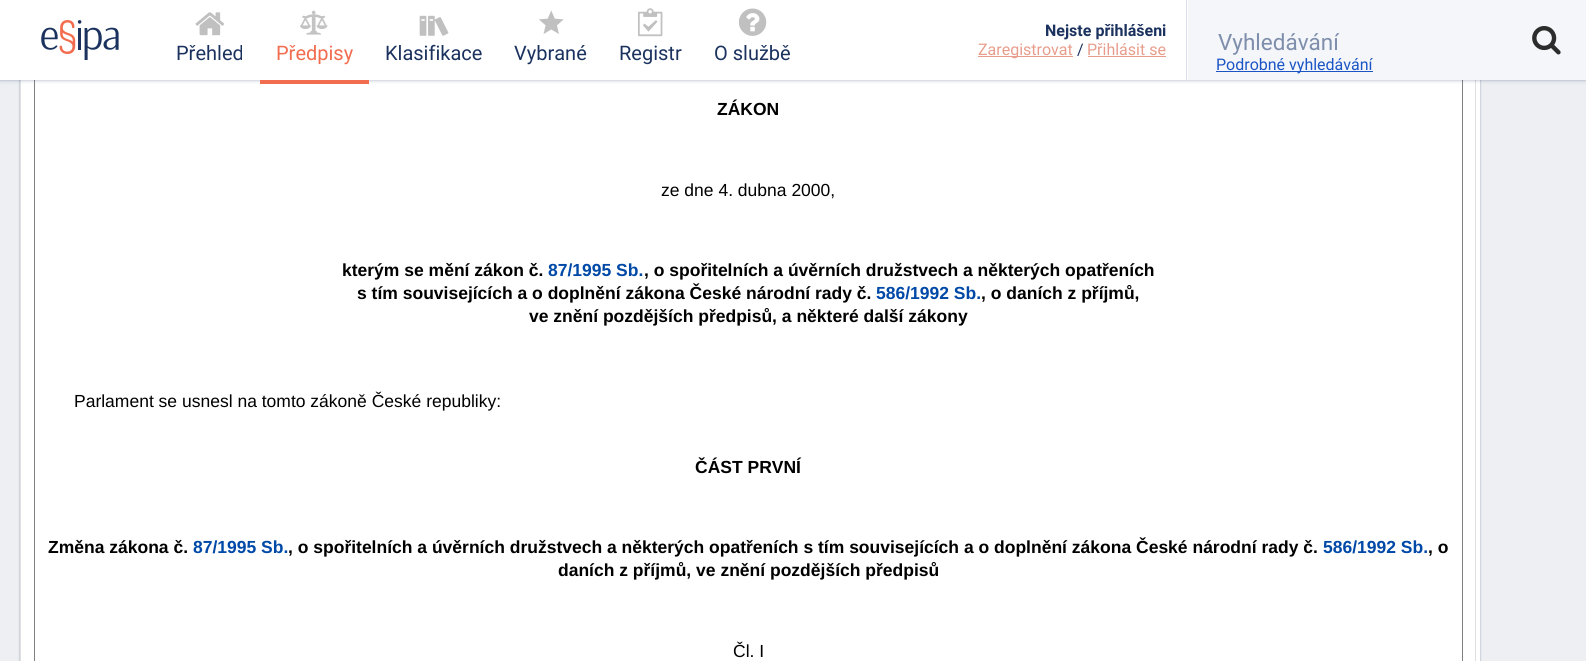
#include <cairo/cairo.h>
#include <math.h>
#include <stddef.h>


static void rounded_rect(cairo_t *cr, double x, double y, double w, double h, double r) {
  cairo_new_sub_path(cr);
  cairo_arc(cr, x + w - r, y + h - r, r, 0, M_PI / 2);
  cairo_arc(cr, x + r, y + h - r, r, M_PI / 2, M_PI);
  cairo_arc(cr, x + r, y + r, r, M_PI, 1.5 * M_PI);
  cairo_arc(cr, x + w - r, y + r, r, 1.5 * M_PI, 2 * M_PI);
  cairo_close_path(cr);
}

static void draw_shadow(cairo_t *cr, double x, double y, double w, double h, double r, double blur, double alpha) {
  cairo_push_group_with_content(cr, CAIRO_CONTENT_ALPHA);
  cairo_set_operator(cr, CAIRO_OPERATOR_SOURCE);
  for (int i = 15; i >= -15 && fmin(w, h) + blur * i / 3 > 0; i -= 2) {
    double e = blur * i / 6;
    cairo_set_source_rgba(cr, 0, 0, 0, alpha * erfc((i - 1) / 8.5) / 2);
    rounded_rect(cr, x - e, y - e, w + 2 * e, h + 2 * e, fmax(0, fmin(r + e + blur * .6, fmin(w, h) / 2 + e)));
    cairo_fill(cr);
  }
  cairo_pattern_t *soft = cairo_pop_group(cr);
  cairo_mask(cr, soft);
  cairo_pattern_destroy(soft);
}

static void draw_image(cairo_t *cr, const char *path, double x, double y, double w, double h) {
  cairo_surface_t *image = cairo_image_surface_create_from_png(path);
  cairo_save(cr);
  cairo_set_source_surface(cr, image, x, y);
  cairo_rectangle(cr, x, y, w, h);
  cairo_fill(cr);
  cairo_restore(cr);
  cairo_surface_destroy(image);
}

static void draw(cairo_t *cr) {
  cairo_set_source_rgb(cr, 237 / 255.0, 239 / 255.0, 242 / 255.0);
  cairo_paint(cr);
  cairo_set_source_rgb(cr, 27 / 255.0, 50 / 255.0, 95 / 255.0);
  draw_shadow(cr, 20, -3, 1460, 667, 0, 1, 0.4);
  cairo_set_source_rgb(cr, 1, 1, 1);
  cairo_rectangle(cr, 21, 80, 1459, 581);
  cairo_fill(cr);
  cairo_set_source_rgb(cr, 223 / 255.0, 223 / 255.0, 223 / 255.0);
  cairo_new_path(cr);
  cairo_move_to(cr, 1476, -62);
  cairo_line_to(cr, 1476, 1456);
  cairo_line_to(cr, 1475, 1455);
  cairo_line_to(cr, 1475, -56);
  cairo_close_path(cr);
  cairo_fill(cr);
  cairo_new_path(cr);
  cairo_move_to(cr, 20, 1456);
  cairo_line_to(cr, 20, -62);
  cairo_line_to(cr, 21, -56);
  cairo_line_to(cr, 21, 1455);
  cairo_close_path(cr);
  cairo_fill(cr);
  cairo_rectangle(cr, 34.5, -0.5, 1428, 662);
  cairo_set_source_rgb(cr, 128 / 255.0, 128 / 255.0, 128 / 255.0);
  cairo_set_line_width(cr, 1);
  cairo_stroke(cr);
  cairo_set_source_rgb(cr, 27 / 255.0, 50 / 255.0, 95 / 255.0);
  draw_shadow(cr, 0, 0, 1586, 80, 0, 2, 0.4);
  cairo_set_source_rgb(cr, 1, 1, 1);
  cairo_rectangle(cr, 0, 0, 1188, 80);
  cairo_fill(cr);
  draw_image(cr, "images/1.png", 41, 20, 78, 40);
  draw_image(cr, "images/2.png", 195, 12, 30, 24);
  cairo_set_source_rgb(cr, 242 / 255.0, 108 / 255.0, 79 / 255.0);
  cairo_new_path(cr);
  cairo_move_to(cr, 260, 80);
  cairo_line_to(cr, 260, 84);
  cairo_line_to(cr, 369, 84);
  cairo_line_to(cr, 369, 4);
  cairo_line_to(cr, 369, 80);
  cairo_close_path(cr);
  cairo_fill(cr);
  draw_image(cr, "images/3.png", 300, 10, 28, 25);
  draw_image(cr, "images/4.png", 419, 15, 30, 21);
  draw_image(cr, "images/5.png", 539, 10, 25, 24);
  draw_image(cr, "images/6.png", 638, 8, 25, 29);
  draw_image(cr, "images/7.png", 738, 8, 29, 28);
  cairo_set_source_rgb(cr, 232 / 255.0, 157 / 255.0, 140 / 255.0);
  cairo_rectangle(cr, 978, 56, 95, 1);
  cairo_fill(cr);
  cairo_rectangle(cr, 1088, 56, 78, 1);
  cairo_fill(cr);
  cairo_set_source_rgb(cr, 217 / 255.0, 223 / 255.0, 237 / 255.0);
  cairo_rectangle(cr, 1186, 0, 1, 80);
  cairo_fill(cr);
  cairo_set_source_rgb(cr, 244 / 255.0, 246 / 255.0, 250 / 255.0);
  cairo_rectangle(cr, 1188, 0, 398, 80);
  cairo_fill(cr);
  draw_image(cr, "images/8.png", 1532, 26, 29, 29);
  cairo_set_source_rgb(cr, 27 / 255.0, 85 / 255.0, 197 / 255.0);
  cairo_rectangle(cr, 1216, 71, 157, 1);
  cairo_fill(cr);
  cairo_select_font_face(cr, "Roboto", CAIRO_FONT_SLANT_NORMAL, CAIRO_FONT_WEIGHT_NORMAL);
  cairo_set_font_size(cr, 20);
  cairo_set_source_rgb(cr, 27 / 255.0, 50 / 255.0, 95 / 255.0);
  cairo_move_to(cr, 176, 60);
  cairo_show_text(cr, "Přehled");
  cairo_set_source_rgb(cr, 242 / 255.0, 108 / 255.0, 79 / 255.0);
  cairo_move_to(cr, 276, 60);
  cairo_show_text(cr, "Předpisy");
  cairo_set_source_rgb(cr, 27 / 255.0, 50 / 255.0, 95 / 255.0);
  cairo_move_to(cr, 385, 60);
  cairo_show_text(cr, "Klasifikace");
  cairo_move_to(cr, 514, 60);
  cairo_show_text(cr, "Vybrané");
  cairo_move_to(cr, 619, 60);
  cairo_show_text(cr, "Registr");
  cairo_move_to(cr, 714, 60);
  cairo_show_text(cr, "O službě");
  cairo_select_font_face(cr, "Roboto", CAIRO_FONT_SLANT_NORMAL, CAIRO_FONT_WEIGHT_BOLD);
  cairo_set_font_size(cr, 16);
  cairo_move_to(cr, 1045, 36);
  cairo_show_text(cr, "Nejste přihlášeni");
  cairo_select_font_face(cr, "Roboto", CAIRO_FONT_SLANT_NORMAL, CAIRO_FONT_WEIGHT_NORMAL);
  cairo_set_source_rgb(cr, 232 / 255.0, 157 / 255.0, 140 / 255.0);
  cairo_move_to(cr, 978, 55);
  cairo_show_text(cr, "Zaregistrovat");
  cairo_set_source_rgb(cr, 27 / 255.0, 50 / 255.0, 95 / 255.0);
  cairo_move_to(cr, 1077, 55);
  cairo_show_text(cr, "/");
  cairo_set_source_rgb(cr, 232 / 255.0, 157 / 255.0, 140 / 255.0);
  cairo_move_to(cr, 1087, 55);
  cairo_show_text(cr, "Přihlásit se");
  cairo_set_font_size(cr, 22.5);
  cairo_set_source_rgb(cr, 126 / 255.0, 142 / 255.0, 171 / 255.0);
  cairo_move_to(cr, 1218, 50);
  cairo_show_text(cr, "Vyhledávání");
  cairo_set_font_size(cr, 16);
  cairo_set_source_rgb(cr, 27 / 255.0, 85 / 255.0, 197 / 255.0);
  cairo_move_to(cr, 1216, 70);
  cairo_show_text(cr, "Podrobné vyhledávání");
  cairo_select_font_face(cr, "Liberation Sans", CAIRO_FONT_SLANT_NORMAL, CAIRO_FONT_WEIGHT_BOLD);
  cairo_set_font_size(cr, 17.5);
  cairo_set_source_rgb(cr, 0, 0, 0);
  cairo_move_to(cr, 717, 115);
  cairo_show_text(cr, "ZÁKON");
  cairo_select_font_face(cr, "Liberation Sans", CAIRO_FONT_SLANT_NORMAL, CAIRO_FONT_WEIGHT_NORMAL);
  cairo_move_to(cr, 661, 196);
  cairo_show_text(cr, "ze dne 4. dubna 2000,");
  cairo_select_font_face(cr, "Liberation Sans", CAIRO_FONT_SLANT_NORMAL, CAIRO_FONT_WEIGHT_BOLD);
  cairo_move_to(cr, 342, 276);
  cairo_show_text(cr, "kterým se mění zákon č.");
  cairo_set_source_rgb(cr, 0, 73 / 255.0, 167 / 255.0);
  cairo_move_to(cr, 548, 276);
  cairo_show_text(cr, "87/1995 Sb.");
  cairo_set_source_rgb(cr, 0, 0, 0);
  cairo_move_to(cr, 644, 276);
  cairo_show_text(cr, ", o spořitelních a úvěrních družstvech a některých opatřeních");
  cairo_move_to(cr, 357, 299);
  cairo_show_text(cr, "s tím souvisejících a o doplnění zákona České národní rady č.");
  cairo_set_source_rgb(cr, 0, 73 / 255.0, 167 / 255.0);
  cairo_move_to(cr, 876, 299);
  cairo_show_text(cr, "586/1992 Sb.");
  cairo_set_source_rgb(cr, 0, 0, 0);
  cairo_move_to(cr, 981, 299);
  cairo_show_text(cr, ", o daních z příjmů,");
  cairo_move_to(cr, 529, 322);
  cairo_show_text(cr, "ve znění pozdějších předpisů, a některé další zákony");
  cairo_select_font_face(cr, "Liberation Sans", CAIRO_FONT_SLANT_NORMAL, CAIRO_FONT_WEIGHT_NORMAL);
  cairo_move_to(cr, 74, 407);
  cairo_show_text(cr, "Parlament se usnesl na tomto zákoně České republiky:");
  cairo_select_font_face(cr, "Liberation Sans", CAIRO_FONT_SLANT_NORMAL, CAIRO_FONT_WEIGHT_BOLD);
  cairo_move_to(cr, 695, 473);
  cairo_show_text(cr, "ČÁST PRVNÍ");
  cairo_move_to(cr, 48, 553);
  cairo_show_text(cr, "Změna zákona č.");
  cairo_set_source_rgb(cr, 0, 73 / 255.0, 167 / 255.0);
  cairo_move_to(cr, 193, 553);
  cairo_show_text(cr, "87/1995 Sb.");
  cairo_set_source_rgb(cr, 0, 0, 0);
  cairo_move_to(cr, 288, 553);
  cairo_show_text(cr, ", o spořitelních a úvěrních družstvech a některých opatřeních s tím souvisejících a o doplnění zákona České národní rady č.");
  cairo_set_source_rgb(cr, 0, 73 / 255.0, 167 / 255.0);
  cairo_move_to(cr, 1323, 553);
  cairo_show_text(cr, "586/1992 Sb.");
  cairo_set_source_rgb(cr, 0, 0, 0);
  cairo_move_to(cr, 1428, 553);
  cairo_show_text(cr, ", o");
  cairo_move_to(cr, 558, 576);
  cairo_show_text(cr, "daních z příjmů, ve znění pozdějších předpisů");
  cairo_select_font_face(cr, "Liberation Sans", CAIRO_FONT_SLANT_NORMAL, CAIRO_FONT_WEIGHT_NORMAL);
  cairo_move_to(cr, 733, 657);
  cairo_show_text(cr, "Čl. I");
}

int main(void) {
  cairo_surface_t *surface = cairo_image_surface_create(CAIRO_FORMAT_RGB24, 1586, 661);
  cairo_t *cr = cairo_create(surface);
  cairo_font_options_t *options = cairo_font_options_create();
  cairo_font_options_set_hint_metrics(options, CAIRO_HINT_METRICS_OFF);
  cairo_font_options_set_hint_style(options, CAIRO_HINT_STYLE_NONE);
  cairo_set_font_options(cr, options);
  cairo_set_miter_limit(cr, 4);
  draw(cr);
  cairo_surface_write_to_png(surface, "out.png");
  cairo_font_options_destroy(options);
  cairo_destroy(cr);
  cairo_surface_destroy(surface);
  return 0;
}
